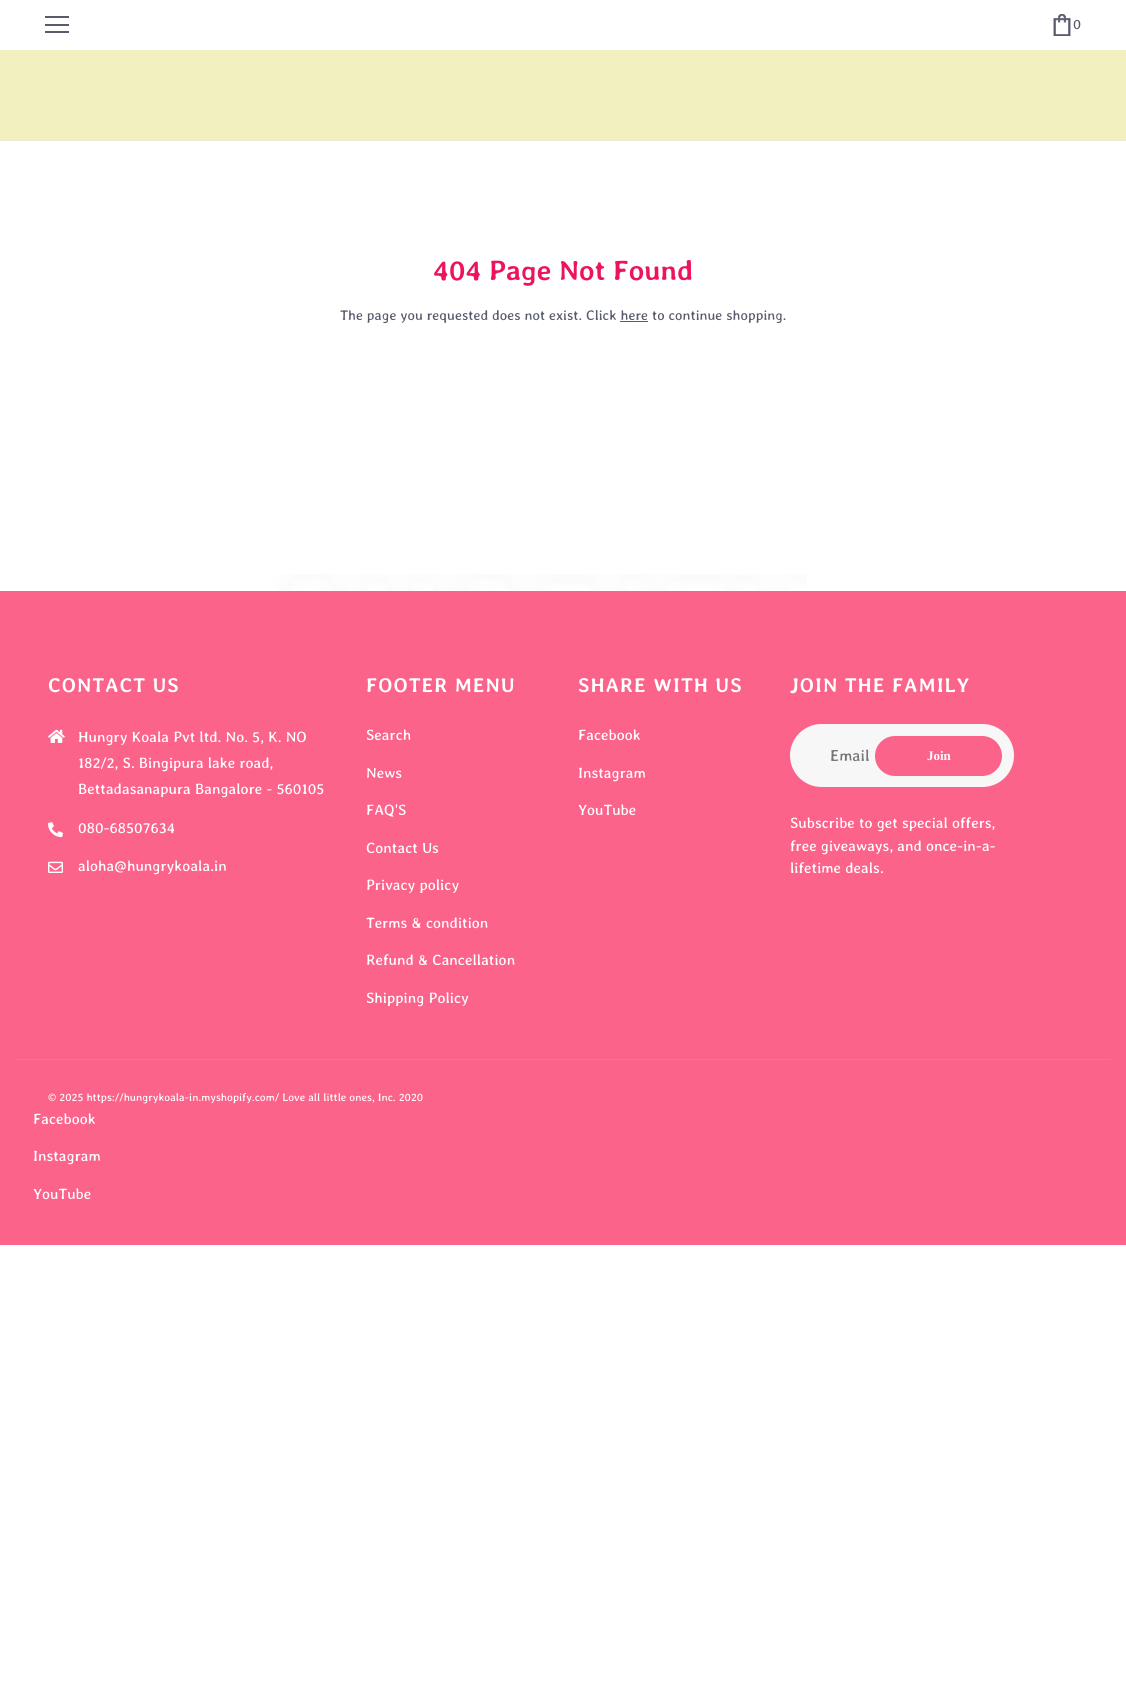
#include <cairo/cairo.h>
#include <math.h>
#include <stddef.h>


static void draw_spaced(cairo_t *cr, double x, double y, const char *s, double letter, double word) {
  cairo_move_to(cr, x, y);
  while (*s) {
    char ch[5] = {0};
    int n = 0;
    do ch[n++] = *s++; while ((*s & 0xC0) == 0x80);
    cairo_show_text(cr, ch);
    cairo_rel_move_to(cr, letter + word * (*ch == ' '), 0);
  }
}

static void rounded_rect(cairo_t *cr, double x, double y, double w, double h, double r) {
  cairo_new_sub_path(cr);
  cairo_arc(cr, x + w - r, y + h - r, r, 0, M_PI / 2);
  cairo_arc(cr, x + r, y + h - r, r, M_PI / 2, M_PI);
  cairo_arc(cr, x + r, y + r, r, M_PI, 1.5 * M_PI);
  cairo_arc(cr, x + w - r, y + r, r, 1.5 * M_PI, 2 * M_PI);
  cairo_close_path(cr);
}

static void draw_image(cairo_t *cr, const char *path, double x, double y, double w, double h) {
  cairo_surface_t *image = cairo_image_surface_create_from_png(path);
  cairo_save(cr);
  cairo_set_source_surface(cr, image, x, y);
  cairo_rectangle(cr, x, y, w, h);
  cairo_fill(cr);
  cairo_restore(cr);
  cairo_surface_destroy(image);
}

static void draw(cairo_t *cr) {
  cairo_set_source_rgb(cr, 1, 1, 1);
  cairo_paint(cr);
  cairo_set_source_rgb(cr, 242 / 255.0, 240 / 255.0, 191 / 255.0);
  cairo_rectangle(cr, 0, 50, 1126, 90);
  cairo_fill(cr);
  cairo_set_source_rgb(cr, 235 / 255.0, 234 / 255.0, 210 / 255.0);
  cairo_rectangle(cr, 0, 140, 1126, 1);
  cairo_fill(cr);
  cairo_set_source_rgb(cr, 88 / 255.0, 91 / 255.0, 109 / 255.0);
  cairo_rectangle(cr, 45, 16, 24, 2);
  cairo_fill(cr);
  cairo_rectangle(cr, 45, 24, 24, 2);
  cairo_fill(cr);
  cairo_rectangle(cr, 45, 31, 24, 2);
  cairo_fill(cr);
  draw_image(cr, "images/1.png", 1053, 14, 18, 22);
  cairo_rectangle(cr, 620, 321, 28, 1);
  cairo_fill(cr);
  cairo_set_source_rgb(cr, 251 / 255.0, 99 / 255.0, 139 / 255.0);
  cairo_rectangle(cr, 0, 591, 1126, 654);
  cairo_fill(cr);
  draw_image(cr, "images/2.png", 48, 729, 17, 14);
  draw_image(cr, "images/3.png", 48, 822, 15, 16);
  draw_image(cr, "images/4.png", 48, 861, 15, 12);
  cairo_set_source_rgb(cr, 247 / 255.0, 247 / 255.0, 247 / 255.0);
  rounded_rect(cr, 790, 724, 224, 63, 31.5);
  cairo_fill(cr);
  cairo_set_source_rgb(cr, 251 / 255.0, 99 / 255.0, 139 / 255.0);
  rounded_rect(cr, 875, 736, 127, 40, 20);
  cairo_fill(cr);
  cairo_set_source_rgb(cr, 249 / 255.0, 112 / 255.0, 148 / 255.0);
  cairo_rectangle(cr, 15, 1059, 1096, 1);
  cairo_fill(cr);
  draw_image(cr, "images/5.png", 273, 574, 534, 17);
  cairo_select_font_face(cr, "Averia Libre", CAIRO_FONT_SLANT_NORMAL, CAIRO_FONT_WEIGHT_NORMAL);
  cairo_set_font_size(cr, 14);
  cairo_set_source_rgb(cr, 88 / 255.0, 91 / 255.0, 109 / 255.0);
  cairo_move_to(cr, 1073, 29);
  cairo_show_text(cr, "0");
  cairo_select_font_face(cr, "Averia Libre", CAIRO_FONT_SLANT_NORMAL, CAIRO_FONT_WEIGHT_BOLD);
  cairo_set_font_size(cr, 28);
  cairo_set_source_rgb(cr, 237 / 255.0, 20 / 255.0, 91 / 255.0);
  cairo_move_to(cr, 433, 280);
  cairo_show_text(cr, "404 Page Not Found");
  cairo_select_font_face(cr, "Averia Libre", CAIRO_FONT_SLANT_NORMAL, CAIRO_FONT_WEIGHT_NORMAL);
  cairo_set_font_size(cr, 14);
  cairo_set_source_rgb(cr, 88 / 255.0, 91 / 255.0, 109 / 255.0);
  cairo_move_to(cr, 340, 320);
  cairo_show_text(cr, "The page you requested does not exist. Click here to continue shopping.");
  cairo_select_font_face(cr, "Averia Libre", CAIRO_FONT_SLANT_NORMAL, CAIRO_FONT_WEIGHT_BOLD);
  cairo_set_font_size(cr, 20);
  cairo_set_source_rgb(cr, 1, 1, 1);
  draw_spaced(cr, 48, 692, "CONTACT US", 1, 0);
  cairo_select_font_face(cr, "Averia Libre", CAIRO_FONT_SLANT_NORMAL, CAIRO_FONT_WEIGHT_NORMAL);
  cairo_set_font_size(cr, 15);
  cairo_move_to(cr, 78, 742);
  cairo_show_text(cr, "Hungry Koala Pvt ltd. No. 5, K. NO");
  cairo_move_to(cr, 78, 768);
  cairo_show_text(cr, "182/2, S. Bingipura lake road,");
  cairo_move_to(cr, 78, 794);
  cairo_show_text(cr, "Bettadasanapura Bangalore - 560105");
  cairo_move_to(cr, 78, 833);
  cairo_show_text(cr, "080-68507634");
  cairo_move_to(cr, 78, 871);
  cairo_show_text(cr, "aloha@hungrykoala.in");
  cairo_select_font_face(cr, "Averia Libre", CAIRO_FONT_SLANT_NORMAL, CAIRO_FONT_WEIGHT_BOLD);
  cairo_set_font_size(cr, 20);
  draw_spaced(cr, 366, 692, "FOOTER MENU", 1, 0);
  cairo_select_font_face(cr, "Averia Libre", CAIRO_FONT_SLANT_NORMAL, CAIRO_FONT_WEIGHT_NORMAL);
  cairo_set_font_size(cr, 15);
  cairo_move_to(cr, 366, 740);
  cairo_show_text(cr, "Search");
  cairo_move_to(cr, 366, 778);
  cairo_show_text(cr, "News");
  cairo_move_to(cr, 366, 815);
  cairo_show_text(cr, "FAQ'S");
  cairo_move_to(cr, 366, 853);
  cairo_show_text(cr, "Contact Us");
  cairo_move_to(cr, 366, 890);
  cairo_show_text(cr, "Privacy policy");
  cairo_move_to(cr, 366, 928);
  cairo_show_text(cr, "Terms & condition");
  cairo_move_to(cr, 366, 965);
  cairo_show_text(cr, "Refund & Cancellation");
  cairo_move_to(cr, 366, 1003);
  cairo_show_text(cr, "Shipping Policy");
  cairo_select_font_face(cr, "Averia Libre", CAIRO_FONT_SLANT_NORMAL, CAIRO_FONT_WEIGHT_BOLD);
  cairo_set_font_size(cr, 20);
  draw_spaced(cr, 578, 692, "SHARE WITH US", 1, 0);
  cairo_select_font_face(cr, "Averia Libre", CAIRO_FONT_SLANT_NORMAL, CAIRO_FONT_WEIGHT_NORMAL);
  cairo_set_font_size(cr, 15);
  cairo_move_to(cr, 578, 740);
  cairo_show_text(cr, "Facebook");
  cairo_move_to(cr, 578, 778);
  cairo_show_text(cr, "Instagram");
  cairo_move_to(cr, 578, 815);
  cairo_show_text(cr, "YouTube");
  cairo_select_font_face(cr, "Averia Libre", CAIRO_FONT_SLANT_NORMAL, CAIRO_FONT_WEIGHT_BOLD);
  cairo_set_font_size(cr, 20);
  draw_spaced(cr, 790, 692, "JOIN THE FAMILY", 1, 0);
  cairo_select_font_face(cr, "Averia Libre", CAIRO_FONT_SLANT_NORMAL, CAIRO_FONT_WEIGHT_NORMAL);
  cairo_set_font_size(cr, 16);
  cairo_set_source_rgb(cr, 117 / 255.0, 117 / 255.0, 117 / 255.0);
  cairo_move_to(cr, 830, 761);
  cairo_show_text(cr, "Email");
  cairo_select_font_face(cr, "Liberation Serif", CAIRO_FONT_SLANT_NORMAL, CAIRO_FONT_WEIGHT_BOLD);
  cairo_set_font_size(cr, 13);
  cairo_set_source_rgb(cr, 1, 1, 1);
  cairo_move_to(cr, 927, 760);
  cairo_show_text(cr, "Join");
  cairo_select_font_face(cr, "Averia Libre", CAIRO_FONT_SLANT_NORMAL, CAIRO_FONT_WEIGHT_NORMAL);
  cairo_set_font_size(cr, 15);
  cairo_move_to(cr, 790, 828);
  cairo_show_text(cr, "Subscribe to get special offers,");
  cairo_move_to(cr, 790, 851);
  cairo_show_text(cr, "free giveaways, and once-in-a-");
  cairo_move_to(cr, 790, 873);
  cairo_show_text(cr, "lifetime deals.");
  cairo_set_font_size(cr, 11);
  cairo_move_to(cr, 48, 1101);
  cairo_show_text(cr, "© 2025 https://hungrykoala-in.myshopify.com/ Love all little ones, Inc. 2020");
  cairo_set_font_size(cr, 15);
  cairo_move_to(cr, 33, 1124);
  cairo_show_text(cr, "Facebook");
  cairo_move_to(cr, 33, 1161);
  cairo_show_text(cr, "Instagram");
  cairo_move_to(cr, 33, 1199);
  cairo_show_text(cr, "YouTube");
}

int main(void) {
  cairo_surface_t *surface = cairo_image_surface_create(CAIRO_FORMAT_RGB24, 1126, 1689);
  cairo_t *cr = cairo_create(surface);
  cairo_font_options_t *options = cairo_font_options_create();
  cairo_font_options_set_hint_metrics(options, CAIRO_HINT_METRICS_OFF);
  cairo_font_options_set_hint_style(options, CAIRO_HINT_STYLE_NONE);
  cairo_set_font_options(cr, options);
  cairo_set_miter_limit(cr, 4);
  draw(cr);
  cairo_surface_write_to_png(surface, "out.png");
  cairo_font_options_destroy(options);
  cairo_destroy(cr);
  cairo_surface_destroy(surface);
  return 0;
}
